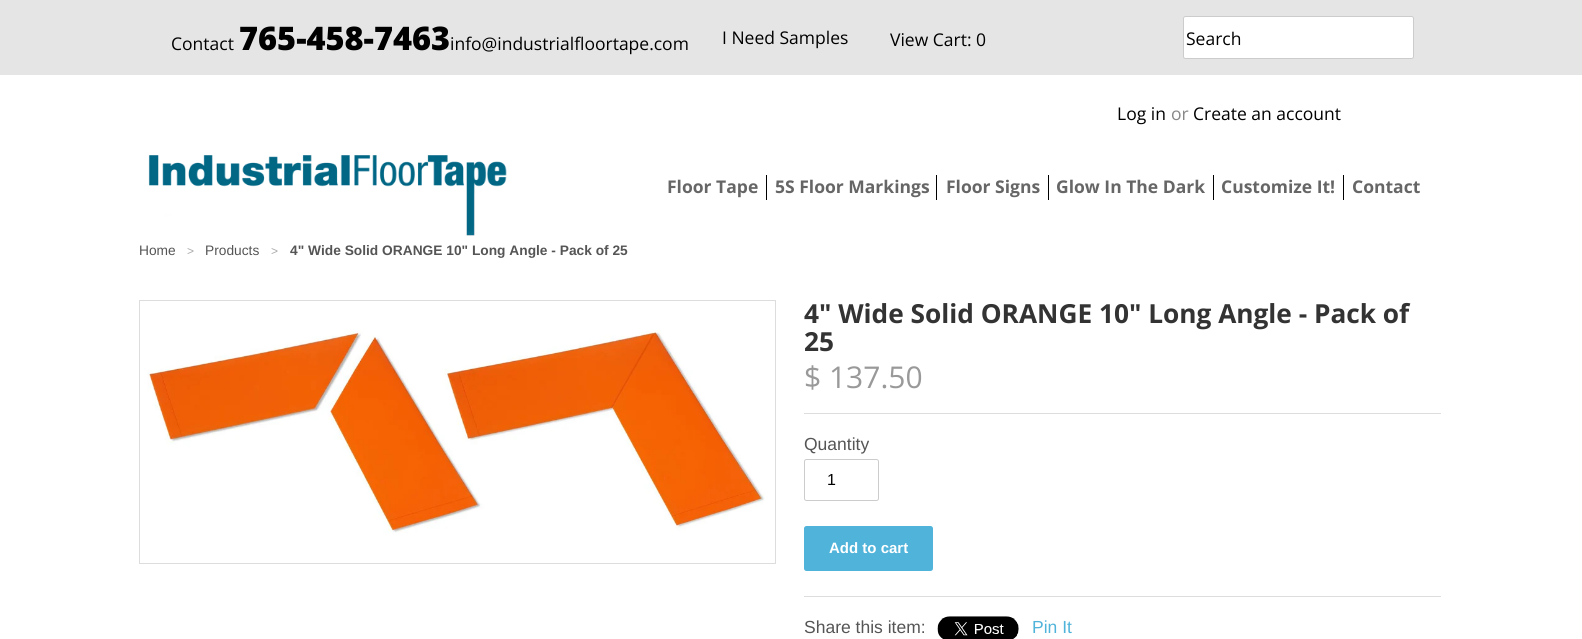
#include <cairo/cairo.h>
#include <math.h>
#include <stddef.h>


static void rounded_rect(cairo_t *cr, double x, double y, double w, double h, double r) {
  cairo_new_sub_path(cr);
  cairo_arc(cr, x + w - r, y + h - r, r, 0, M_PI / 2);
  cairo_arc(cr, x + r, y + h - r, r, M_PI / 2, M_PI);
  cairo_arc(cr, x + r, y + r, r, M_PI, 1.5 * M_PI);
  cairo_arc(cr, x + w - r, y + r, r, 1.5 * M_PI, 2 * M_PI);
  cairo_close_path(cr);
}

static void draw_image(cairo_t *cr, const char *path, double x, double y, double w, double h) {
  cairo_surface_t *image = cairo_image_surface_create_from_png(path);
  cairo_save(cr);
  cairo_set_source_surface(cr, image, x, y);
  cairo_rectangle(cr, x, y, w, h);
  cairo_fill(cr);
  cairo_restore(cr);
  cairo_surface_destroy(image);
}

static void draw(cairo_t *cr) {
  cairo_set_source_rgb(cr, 1, 1, 1);
  cairo_paint(cr);
  cairo_set_source_rgb(cr, 229 / 255.0, 229 / 255.0, 229 / 255.0);
  cairo_rectangle(cr, 0, 0, 1582, 75);
  cairo_fill(cr);
  cairo_set_source_rgb(cr, 1, 1, 1);
  rounded_rect(cr, 1183.5, 16.5, 230, 42, 2);
  cairo_fill_preserve(cr);
  cairo_set_source_rgb(cr, 204 / 255.0, 204 / 255.0, 204 / 255.0);
  cairo_set_line_width(cr, 1);
  cairo_stroke(cr);
  draw_image(cr, "images/1.png", 148, 155, 359, 81);
  cairo_set_source_rgb(cr, 0, 0, 0);
  cairo_rectangle(cr, 766, 175, 1, 25);
  cairo_fill(cr);
  cairo_rectangle(cr, 936, 175, 1, 25);
  cairo_fill(cr);
  cairo_rectangle(cr, 1048, 175, 1, 25);
  cairo_fill(cr);
  cairo_rectangle(cr, 1213, 175, 1, 25);
  cairo_fill(cr);
  cairo_rectangle(cr, 1343, 175, 1, 25);
  cairo_fill(cr);
  cairo_rectangle(cr, 139.5, 300.5, 636, 263);
  cairo_set_source_rgb(cr, 221 / 255.0, 221 / 255.0, 221 / 255.0);
  cairo_stroke(cr);
  draw_image(cr, "images/2.png", 147, 330, 618, 203);
  cairo_rectangle(cr, 804, 413, 637, 1);
  cairo_fill(cr);
  cairo_rectangle(cr, 804, 596, 637, 1);
  cairo_fill(cr);
  rounded_rect(cr, 804.5, 459.5, 74, 41, 2);
  cairo_set_source_rgb(cr, 204 / 255.0, 204 / 255.0, 204 / 255.0);
  cairo_stroke(cr);
  cairo_set_source_rgb(cr, 80 / 255.0, 179 / 255.0, 218 / 255.0);
  rounded_rect(cr, 804, 526, 129, 45, 2.5);
  cairo_fill(cr);
  draw_image(cr, "images/3.png", 937, 616, 82, 23);
  cairo_select_font_face(cr, "Open Sans", CAIRO_FONT_SLANT_NORMAL, CAIRO_FONT_WEIGHT_NORMAL);
  cairo_set_font_size(cr, 17.5);
  cairo_set_source_rgb(cr, 0, 0, 0);
  cairo_move_to(cr, 171, 50);
  cairo_show_text(cr, "Contact");
  cairo_select_font_face(cr, "Open Sans ExtraBold", CAIRO_FONT_SLANT_NORMAL, CAIRO_FONT_WEIGHT_NORMAL);
  cairo_set_font_size(cr, 32.5);
  cairo_move_to(cr, 239, 50);
  cairo_show_text(cr, "765-458-7463");
  cairo_select_font_face(cr, "Open Sans", CAIRO_FONT_SLANT_NORMAL, CAIRO_FONT_WEIGHT_NORMAL);
  cairo_set_font_size(cr, 17.5);
  cairo_move_to(cr, 450, 50);
  cairo_show_text(cr, "info@industrialfloortape.com");
  cairo_move_to(cr, 722, 44);
  cairo_show_text(cr, "I Need Samples");
  cairo_move_to(cr, 890, 46);
  cairo_show_text(cr, "View Cart: 0");
  cairo_move_to(cr, 1186, 45);
  cairo_show_text(cr, "Search");
  cairo_move_to(cr, 1117, 120);
  cairo_show_text(cr, "Log in");
  cairo_set_source_rgb(cr, 136 / 255.0, 136 / 255.0, 136 / 255.0);
  cairo_move_to(cr, 1171, 120);
  cairo_show_text(cr, "or");
  cairo_set_source_rgb(cr, 0, 0, 0);
  cairo_move_to(cr, 1193, 120);
  cairo_show_text(cr, "Create an account");
  cairo_select_font_face(cr, "Open Sans", CAIRO_FONT_SLANT_NORMAL, CAIRO_FONT_WEIGHT_BOLD);
  cairo_set_source_rgb(cr, 102 / 255.0, 102 / 255.0, 102 / 255.0);
  cairo_move_to(cr, 667, 193);
  cairo_show_text(cr, "Floor Tape");
  cairo_move_to(cr, 775, 193);
  cairo_show_text(cr, "5S Floor Markings");
  cairo_move_to(cr, 946, 193);
  cairo_show_text(cr, "Floor Signs");
  cairo_move_to(cr, 1056, 193);
  cairo_show_text(cr, "Glow In The Dark");
  cairo_move_to(cr, 1221, 193);
  cairo_show_text(cr, "Customize It!");
  cairo_move_to(cr, 1352, 193);
  cairo_show_text(cr, "Contact");
  cairo_select_font_face(cr, "Liberation Sans", CAIRO_FONT_SLANT_NORMAL, CAIRO_FONT_WEIGHT_NORMAL);
  cairo_set_font_size(cr, 13.75);
  cairo_set_source_rgb(cr, 85 / 255.0, 85 / 255.0, 85 / 255.0);
  cairo_move_to(cr, 139, 255);
  cairo_show_text(cr, "Home");
  cairo_set_font_size(cr, 12);
  cairo_set_source_rgb(cr, 170 / 255.0, 170 / 255.0, 170 / 255.0);
  cairo_move_to(cr, 187, 255);
  cairo_show_text(cr, ">");
  cairo_set_font_size(cr, 13.75);
  cairo_set_source_rgb(cr, 85 / 255.0, 85 / 255.0, 85 / 255.0);
  cairo_move_to(cr, 205, 255);
  cairo_show_text(cr, "Products");
  cairo_set_font_size(cr, 12);
  cairo_set_source_rgb(cr, 170 / 255.0, 170 / 255.0, 170 / 255.0);
  cairo_move_to(cr, 271, 255);
  cairo_show_text(cr, ">");
  cairo_select_font_face(cr, "Liberation Sans", CAIRO_FONT_SLANT_NORMAL, CAIRO_FONT_WEIGHT_BOLD);
  cairo_set_font_size(cr, 13.75);
  cairo_set_source_rgb(cr, 85 / 255.0, 85 / 255.0, 85 / 255.0);
  cairo_move_to(cr, 290, 255);
  cairo_show_text(cr, "4\" Wide Solid ORANGE 10\" Long Angle - Pack of 25");
  cairo_select_font_face(cr, "Open Sans", CAIRO_FONT_SLANT_NORMAL, CAIRO_FONT_WEIGHT_BOLD);
  cairo_set_font_size(cr, 26.25);
  cairo_set_source_rgb(cr, 51 / 255.0, 51 / 255.0, 51 / 255.0);
  cairo_move_to(cr, 804, 323);
  cairo_show_text(cr, "4\" Wide Solid ORANGE 10\" Long Angle - Pack of");
  cairo_move_to(cr, 804, 351);
  cairo_show_text(cr, "25");
  cairo_select_font_face(cr, "Open Sans", CAIRO_FONT_SLANT_NORMAL, CAIRO_FONT_WEIGHT_NORMAL);
  cairo_set_font_size(cr, 30);
  cairo_set_source_rgb(cr, 153 / 255.0, 153 / 255.0, 153 / 255.0);
  cairo_move_to(cr, 804, 388);
  cairo_show_text(cr, "$ 137.50");
  cairo_select_font_face(cr, "Liberation Sans", CAIRO_FONT_SLANT_NORMAL, CAIRO_FONT_WEIGHT_NORMAL);
  cairo_set_font_size(cr, 17.5);
  cairo_set_source_rgb(cr, 85 / 255.0, 85 / 255.0, 85 / 255.0);
  cairo_move_to(cr, 804, 450);
  cairo_show_text(cr, "Quantity");
  cairo_set_font_size(cr, 16);
  cairo_set_source_rgb(cr, 0, 0, 0);
  cairo_move_to(cr, 827, 485);
  cairo_show_text(cr, "1");
  cairo_select_font_face(cr, "Liberation Sans", CAIRO_FONT_SLANT_NORMAL, CAIRO_FONT_WEIGHT_BOLD);
  cairo_set_font_size(cr, 15);
  cairo_set_source_rgb(cr, 1, 1, 1);
  cairo_move_to(cr, 829, 553);
  cairo_show_text(cr, "Add to cart");
  cairo_select_font_face(cr, "Liberation Sans", CAIRO_FONT_SLANT_NORMAL, CAIRO_FONT_WEIGHT_NORMAL);
  cairo_set_font_size(cr, 17.5);
  cairo_set_source_rgb(cr, 85 / 255.0, 85 / 255.0, 85 / 255.0);
  cairo_move_to(cr, 804, 633);
  cairo_show_text(cr, "Share this item:");
  cairo_set_source_rgb(cr, 80 / 255.0, 179 / 255.0, 218 / 255.0);
  cairo_move_to(cr, 1032, 633);
  cairo_show_text(cr, "Pin It");
}

int main(void) {
  cairo_surface_t *surface = cairo_image_surface_create(CAIRO_FORMAT_RGB24, 1582, 639);
  cairo_t *cr = cairo_create(surface);
  cairo_font_options_t *options = cairo_font_options_create();
  cairo_font_options_set_hint_metrics(options, CAIRO_HINT_METRICS_OFF);
  cairo_font_options_set_hint_style(options, CAIRO_HINT_STYLE_NONE);
  cairo_set_font_options(cr, options);
  cairo_set_miter_limit(cr, 4);
  draw(cr);
  cairo_surface_write_to_png(surface, "out.png");
  cairo_font_options_destroy(options);
  cairo_destroy(cr);
  cairo_surface_destroy(surface);
  return 0;
}
